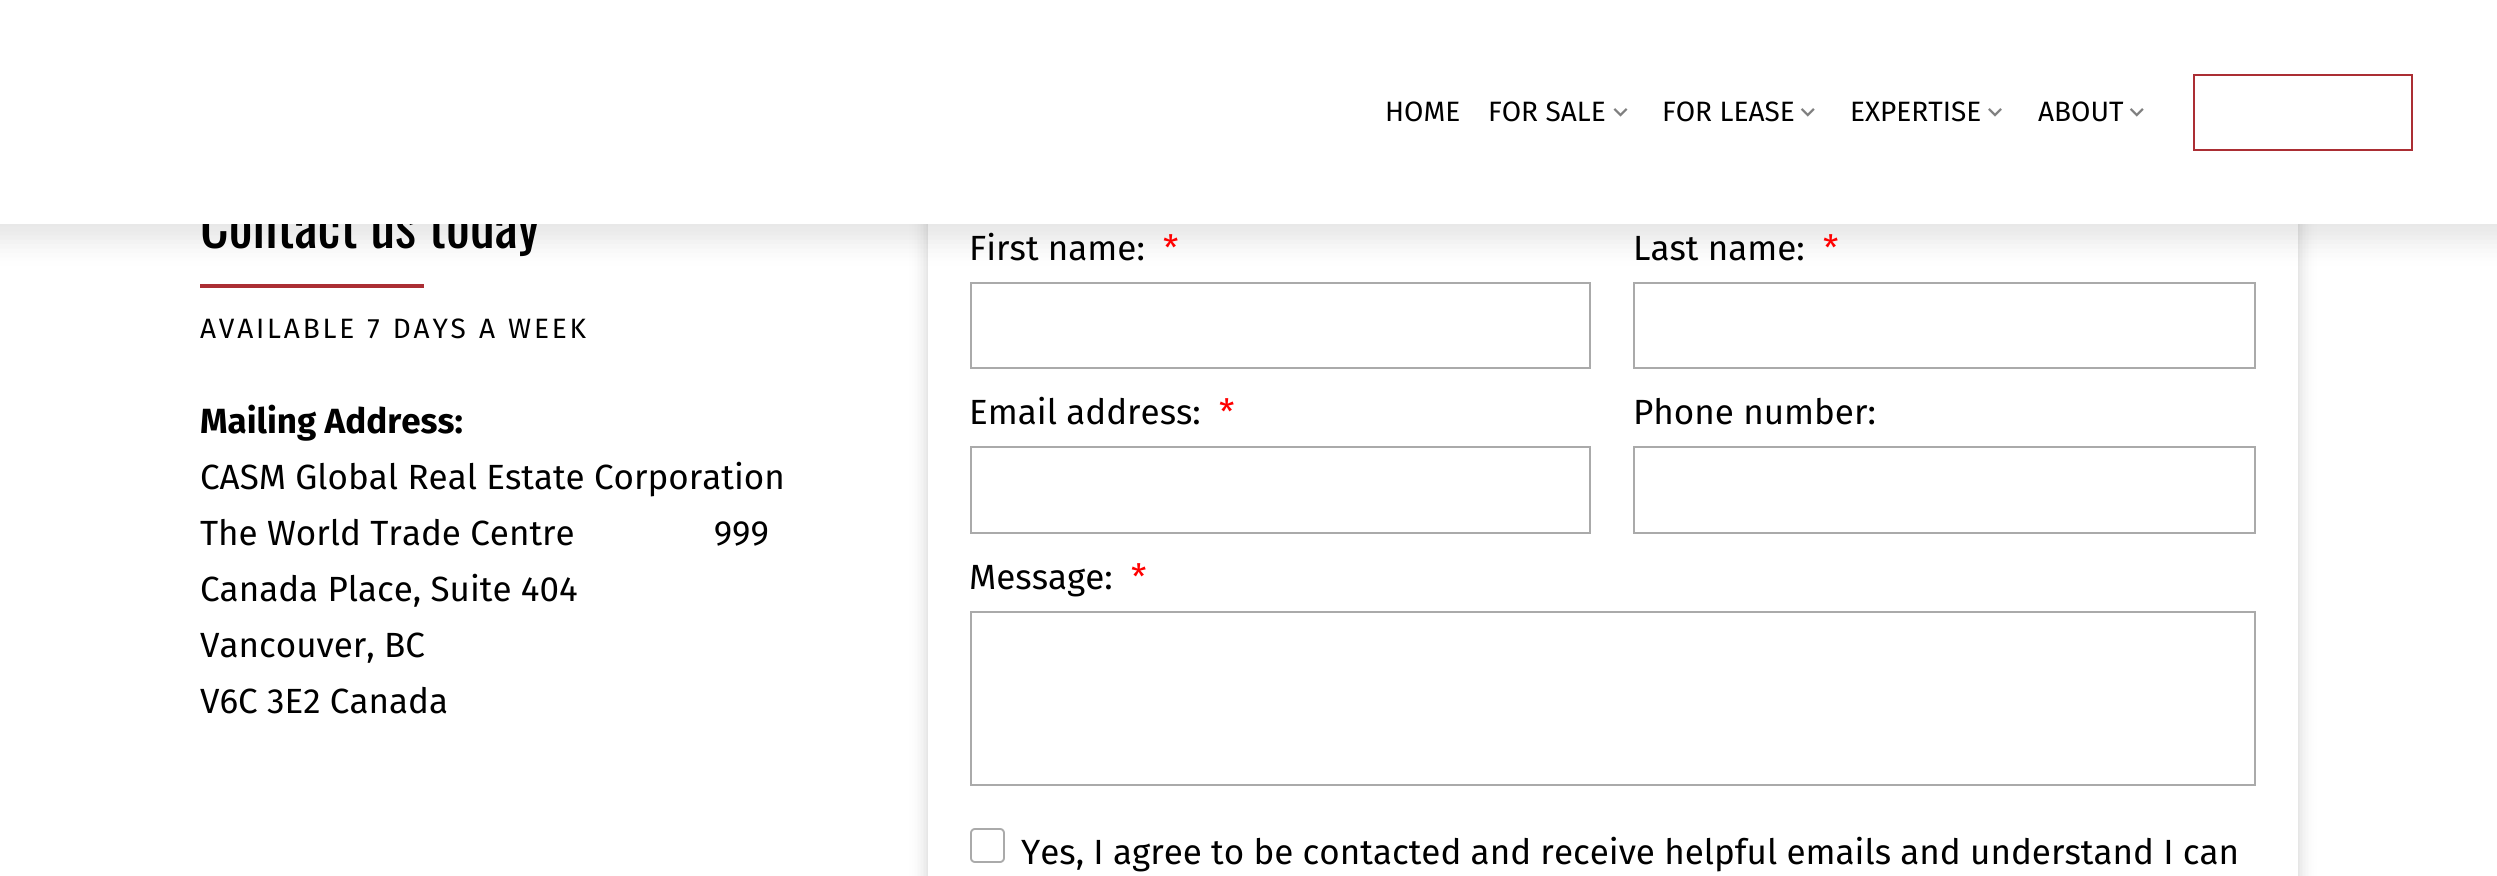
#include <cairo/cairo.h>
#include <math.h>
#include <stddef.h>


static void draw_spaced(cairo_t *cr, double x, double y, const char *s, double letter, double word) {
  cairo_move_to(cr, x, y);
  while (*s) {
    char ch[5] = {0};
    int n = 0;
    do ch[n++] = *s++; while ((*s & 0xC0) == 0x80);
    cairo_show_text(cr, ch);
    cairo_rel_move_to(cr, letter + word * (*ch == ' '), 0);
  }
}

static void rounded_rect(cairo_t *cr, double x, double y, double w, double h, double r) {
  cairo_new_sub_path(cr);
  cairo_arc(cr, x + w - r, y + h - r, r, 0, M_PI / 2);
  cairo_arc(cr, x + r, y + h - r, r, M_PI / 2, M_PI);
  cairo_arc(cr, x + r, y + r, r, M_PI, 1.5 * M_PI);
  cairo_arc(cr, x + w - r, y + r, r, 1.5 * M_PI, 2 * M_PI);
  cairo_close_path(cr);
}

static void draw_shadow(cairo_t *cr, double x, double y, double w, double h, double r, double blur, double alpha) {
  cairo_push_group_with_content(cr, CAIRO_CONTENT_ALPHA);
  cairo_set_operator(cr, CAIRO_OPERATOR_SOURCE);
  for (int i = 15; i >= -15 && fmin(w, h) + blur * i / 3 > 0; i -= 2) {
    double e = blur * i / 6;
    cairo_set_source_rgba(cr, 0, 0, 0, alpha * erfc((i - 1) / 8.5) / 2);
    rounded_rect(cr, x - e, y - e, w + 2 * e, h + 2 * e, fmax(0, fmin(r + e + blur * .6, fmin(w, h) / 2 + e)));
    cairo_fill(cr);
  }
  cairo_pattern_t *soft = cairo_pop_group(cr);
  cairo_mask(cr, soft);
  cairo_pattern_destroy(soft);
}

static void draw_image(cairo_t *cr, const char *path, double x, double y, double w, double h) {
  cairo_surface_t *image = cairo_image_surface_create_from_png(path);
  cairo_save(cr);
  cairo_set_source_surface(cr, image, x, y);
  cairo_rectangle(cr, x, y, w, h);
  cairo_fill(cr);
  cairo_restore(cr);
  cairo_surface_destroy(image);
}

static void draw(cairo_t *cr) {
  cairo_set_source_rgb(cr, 1, 1, 1);
  cairo_paint(cr);
  cairo_save(cr);
  cairo_set_fill_rule(cr, CAIRO_FILL_RULE_EVEN_ODD);
  cairo_new_path(cr);
  cairo_move_to(cr, 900, 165);
  cairo_line_to(cr, 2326, 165);
  cairo_line_to(cr, 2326, 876);
  cairo_line_to(cr, 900, 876);
  cairo_close_path(cr);
  cairo_move_to(cr, 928, 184);
  cairo_line_to(cr, 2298, 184);
  cairo_line_to(cr, 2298, 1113);
  cairo_line_to(cr, 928, 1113);
  cairo_close_path(cr);
  cairo_clip(cr);
  cairo_set_source_rgb(cr, 0, 0, 0);
  draw_shadow(cr, 928, 193, 1370, 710, 0, 9, 0.2);
  cairo_restore(cr);
  cairo_set_source_rgba(cr, 1, 1, 1, 0.6);
  cairo_rectangle(cr, 2297, 224, 1, 652);
  cairo_fill(cr);
  cairo_set_source_rgb(cr, 0, 0, 0);
  draw_shadow(cr, -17, -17, 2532, 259, 0, 13, 0.1);
  cairo_set_source_rgb(cr, 171 / 255.0, 46 / 255.0, 52 / 255.0);
  cairo_rectangle(cr, 200, 284, 224, 4);
  cairo_fill(cr);
  cairo_rectangle(cr, 971, 283, 619, 85);
  cairo_set_source_rgb(cr, 170 / 255.0, 170 / 255.0, 170 / 255.0);
  cairo_stroke(cr);
  cairo_rectangle(cr, 1634, 283, 621, 85);
  cairo_stroke(cr);
  cairo_rectangle(cr, 971, 447, 619, 86);
  cairo_stroke(cr);
  cairo_rectangle(cr, 1634, 447, 621, 86);
  cairo_stroke(cr);
  cairo_rectangle(cr, 971, 612, 1284, 173);
  cairo_stroke(cr);
  rounded_rect(cr, 971, 829, 33, 33, 4);
  cairo_stroke(cr);
  cairo_select_font_face(cr, "Oswald", CAIRO_FONT_SLANT_NORMAL, CAIRO_FONT_WEIGHT_NORMAL);
  cairo_set_font_size(cr, 56);
  cairo_set_source_rgb(cr, 0, 0, 0);
  cairo_move_to(cr, 200, 248);
  cairo_show_text(cr, "Contact us today");
  cairo_set_source_rgb(cr, 1, 1, 1);
  cairo_rectangle(cr, 0, 0, 2497, 224);
  cairo_fill(cr);
  cairo_rectangle(cr, 2194, 75, 218, 75);
  cairo_set_source_rgb(cr, 171 / 255.0, 46 / 255.0, 52 / 255.0);
  cairo_stroke(cr);
  draw_image(cr, "images/2.png", 2129, 108, 15, 9);
  cairo_select_font_face(cr, "Fira Sans", CAIRO_FONT_SLANT_NORMAL, CAIRO_FONT_WEIGHT_NORMAL);
  cairo_set_font_size(cr, 28);
  cairo_set_source_rgb(cr, 0, 0, 0);
  cairo_move_to(cr, 2038, 121);
  cairo_show_text(cr, "ABOUT");
  draw_image(cr, "images/3.png", 1988, 108, 14, 9);
  cairo_move_to(cr, 1850, 121);
  cairo_show_text(cr, "EXPERTISE");
  draw_image(cr, "images/2.png", 1800, 108, 15, 9);
  cairo_move_to(cr, 1662, 121);
  cairo_show_text(cr, "FOR LEASE");
  draw_image(cr, "images/1.png", 1613, 108, 15, 9);
  cairo_move_to(cr, 1488, 121);
  cairo_show_text(cr, "FOR SALE");
  cairo_move_to(cr, 1385, 121);
  cairo_show_text(cr, "HOME");
  draw_spaced(cr, 200, 338, "AVAILABLE 7 DAYS A WEEK", 2.8, 0);
  cairo_select_font_face(cr, "Fira Sans", CAIRO_FONT_SLANT_NORMAL, CAIRO_FONT_WEIGHT_BOLD);
  cairo_set_font_size(cr, 35);
  cairo_move_to(cr, 200, 433);
  cairo_show_text(cr, "Mailing Address:");
  cairo_select_font_face(cr, "Fira Sans", CAIRO_FONT_SLANT_NORMAL, CAIRO_FONT_WEIGHT_NORMAL);
  cairo_move_to(cr, 200, 489);
  cairo_show_text(cr, "CASM Global Real Estate Corporation");
  cairo_move_to(cr, 200, 545);
  cairo_show_text(cr, "The World Trade Centre               999");
  cairo_move_to(cr, 200, 601);
  cairo_show_text(cr, "Canada Place, Suite 404");
  cairo_move_to(cr, 200, 657);
  cairo_show_text(cr, "Vancouver, BC");
  cairo_move_to(cr, 200, 713);
  cairo_show_text(cr, "V6C 3E2 Canada");
  cairo_move_to(cr, 969, 260);
  cairo_show_text(cr, "First name:");
  cairo_set_source_rgb(cr, 1, 0, 0);
  cairo_move_to(cr, 1163, 260);
  cairo_show_text(cr, "*");
  cairo_set_source_rgb(cr, 0, 0, 0);
  cairo_move_to(cr, 1633, 260);
  cairo_show_text(cr, "Last name:");
  cairo_set_source_rgb(cr, 1, 0, 0);
  cairo_move_to(cr, 1823, 260);
  cairo_show_text(cr, "*");
  cairo_set_source_rgb(cr, 0, 0, 0);
  cairo_move_to(cr, 969, 424);
  cairo_show_text(cr, "Email address:");
  cairo_set_source_rgb(cr, 1, 0, 0);
  cairo_move_to(cr, 1219, 424);
  cairo_show_text(cr, "*");
  cairo_set_source_rgb(cr, 0, 0, 0);
  cairo_move_to(cr, 1633, 424);
  cairo_show_text(cr, "Phone number:");
  cairo_move_to(cr, 969, 589);
  cairo_show_text(cr, "Message:");
  cairo_set_source_rgb(cr, 1, 0, 0);
  cairo_move_to(cr, 1131, 589);
  cairo_show_text(cr, "*");
  cairo_set_source_rgb(cr, 0, 0, 0);
  cairo_move_to(cr, 1021, 864);
  cairo_show_text(cr, "Yes, I agree to be contacted and receive helpful emails and understand I can");
}

int main(void) {
  cairo_surface_t *surface = cairo_image_surface_create(CAIRO_FORMAT_RGB24, 2497, 876);
  cairo_t *cr = cairo_create(surface);
  cairo_font_options_t *options = cairo_font_options_create();
  cairo_font_options_set_hint_metrics(options, CAIRO_HINT_METRICS_OFF);
  cairo_font_options_set_hint_style(options, CAIRO_HINT_STYLE_NONE);
  cairo_set_font_options(cr, options);
  cairo_set_miter_limit(cr, 4);
  draw(cr);
  cairo_surface_write_to_png(surface, "out.png");
  cairo_font_options_destroy(options);
  cairo_destroy(cr);
  cairo_surface_destroy(surface);
  return 0;
}
